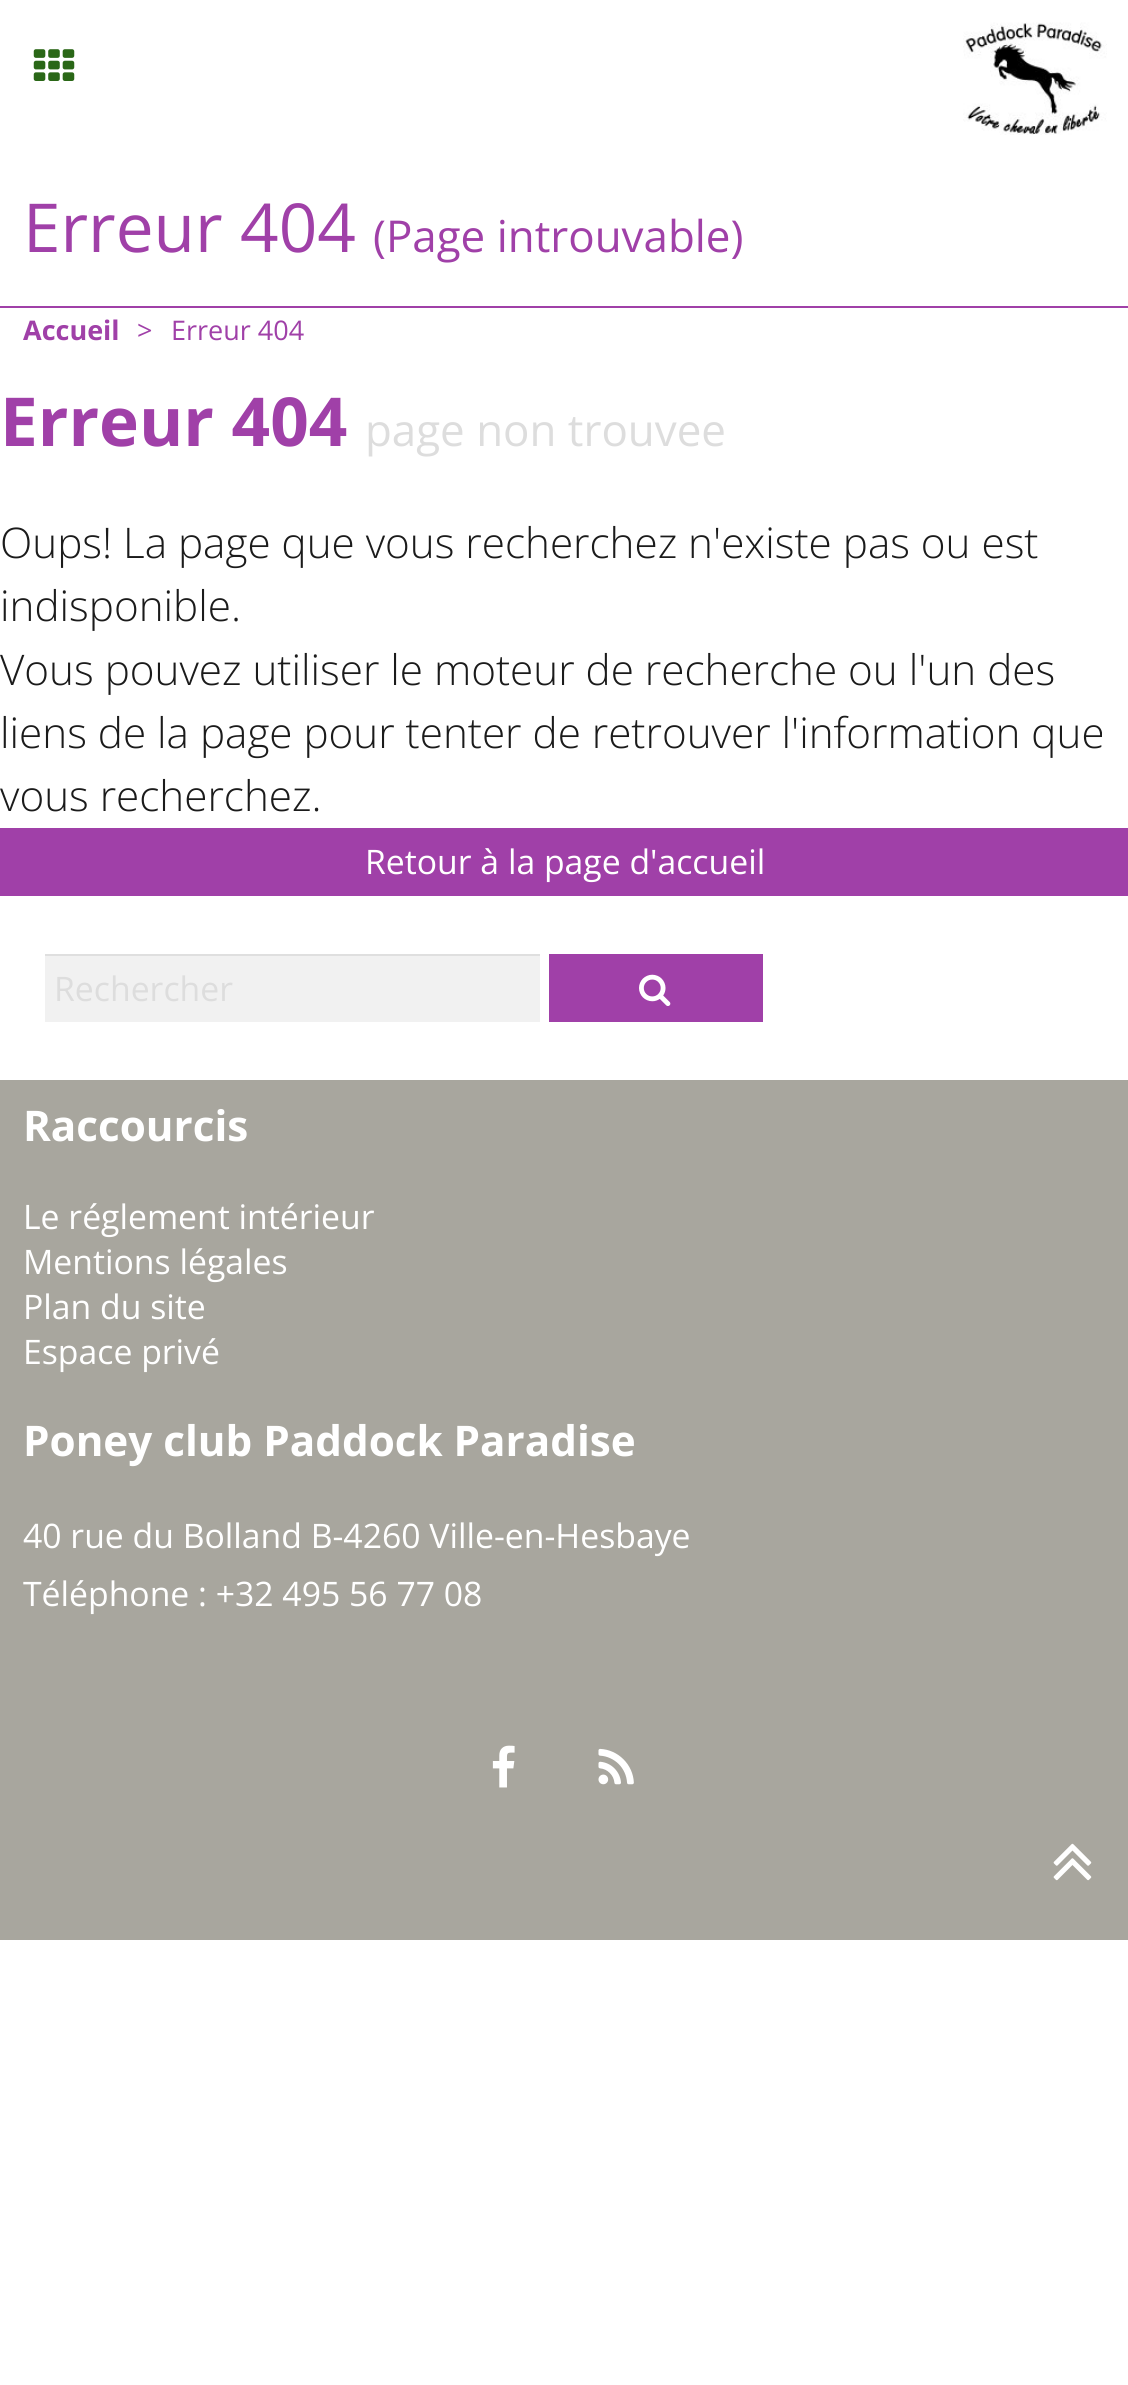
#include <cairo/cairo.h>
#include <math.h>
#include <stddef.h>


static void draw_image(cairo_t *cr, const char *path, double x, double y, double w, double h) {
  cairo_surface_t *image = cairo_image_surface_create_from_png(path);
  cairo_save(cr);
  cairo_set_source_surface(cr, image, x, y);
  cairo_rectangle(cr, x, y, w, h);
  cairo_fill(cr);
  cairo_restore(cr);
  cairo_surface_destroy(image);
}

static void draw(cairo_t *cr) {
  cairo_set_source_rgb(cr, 1, 1, 1);
  cairo_paint(cr);
  draw_image(cr, "images/1.png", 33, 49, 42, 32);
  draw_image(cr, "images/2.png", 963, 22, 144, 113);
  cairo_set_source_rgb(cr, 160 / 255.0, 64 / 255.0, 168 / 255.0);
  cairo_rectangle(cr, 0, 306, 1128, 2);
  cairo_fill(cr);
  cairo_rectangle(cr, 0, 828, 1128, 68);
  cairo_fill(cr);
  cairo_set_source_rgb(cr, 241 / 255.0, 241 / 255.0, 241 / 255.0);
  cairo_rectangle(cr, 45, 956, 495, 66);
  cairo_fill(cr);
  cairo_set_source_rgb(cr, 223 / 255.0, 223 / 255.0, 223 / 255.0);
  cairo_rectangle(cr, 45, 954, 495, 2);
  cairo_fill(cr);
  cairo_set_source_rgb(cr, 160 / 255.0, 64 / 255.0, 168 / 255.0);
  cairo_rectangle(cr, 549, 954, 214, 68);
  cairo_fill(cr);
  draw_image(cr, "images/3.png", 639, 974, 32, 32);
  cairo_set_source_rgb(cr, 168 / 255.0, 166 / 255.0, 158 / 255.0);
  cairo_rectangle(cr, 0, 1080, 1128, 860);
  cairo_fill(cr);
  draw_image(cr, "images/4.png", 492, 1745, 23, 43);
  draw_image(cr, "images/5.png", 598, 1748, 36, 37);
  draw_image(cr, "images/6.png", 1053, 1843, 39, 38);
  cairo_select_font_face(cr, "Open Sans", CAIRO_FONT_SLANT_NORMAL, CAIRO_FONT_WEIGHT_NORMAL);
  cairo_set_font_size(cr, 67.5);
  cairo_set_source_rgb(cr, 160 / 255.0, 64 / 255.0, 168 / 255.0);
  cairo_move_to(cr, 23, 252);
  cairo_show_text(cr, "Erreur 404");
  cairo_set_font_size(cr, 43.9);
  cairo_move_to(cr, 373, 252);
  cairo_show_text(cr, "(Page introuvable)");
  cairo_select_font_face(cr, "Open Sans", CAIRO_FONT_SLANT_NORMAL, CAIRO_FONT_WEIGHT_BOLD);
  cairo_set_font_size(cr, 27);
  cairo_move_to(cr, 23, 340);
  cairo_show_text(cr, "Accueil");
  cairo_select_font_face(cr, "Open Sans", CAIRO_FONT_SLANT_NORMAL, CAIRO_FONT_WEIGHT_NORMAL);
  cairo_move_to(cr, 137, 340);
  cairo_show_text(cr, ">");
  cairo_move_to(cr, 171, 340);
  cairo_show_text(cr, "Erreur 404");
  cairo_select_font_face(cr, "Open Sans", CAIRO_FONT_SLANT_NORMAL, CAIRO_FONT_WEIGHT_BOLD);
  cairo_set_font_size(cr, 67.5);
  cairo_move_to(cr, 0, 446);
  cairo_show_text(cr, "Erreur 404");
  cairo_select_font_face(cr, "Open Sans", CAIRO_FONT_SLANT_NORMAL, CAIRO_FONT_WEIGHT_NORMAL);
  cairo_set_font_size(cr, 43.9);
  cairo_set_source_rgb(cr, 221 / 255.0, 221 / 255.0, 221 / 255.0);
  cairo_move_to(cr, 365, 446);
  cairo_show_text(cr, "page non trouvee");
  cairo_select_font_face(cr, "Open Sans Light", CAIRO_FONT_SLANT_NORMAL, CAIRO_FONT_WEIGHT_NORMAL);
  cairo_set_font_size(cr, 42.2);
  cairo_set_source_rgb(cr, 27 / 255.0, 27 / 255.0, 27 / 255.0);
  cairo_move_to(cr, 0, 558);
  cairo_show_text(cr, "Oups! La page que vous recherchez n'existe pas ou est");
  cairo_move_to(cr, 0, 621);
  cairo_show_text(cr, "indisponible.");
  cairo_move_to(cr, 0, 685);
  cairo_show_text(cr, "Vous pouvez utiliser le moteur de recherche ou l'un des");
  cairo_move_to(cr, 0, 748);
  cairo_show_text(cr, "liens de la page pour tenter de retrouver l'information que");
  cairo_move_to(cr, 0, 811);
  cairo_show_text(cr, "vous recherchez.");
  cairo_select_font_face(cr, "Open Sans", CAIRO_FONT_SLANT_NORMAL, CAIRO_FONT_WEIGHT_NORMAL);
  cairo_set_font_size(cr, 33.75);
  cairo_set_source_rgb(cr, 1, 1, 1);
  cairo_move_to(cr, 365, 874);
  cairo_show_text(cr, "Retour à la page d'accueil");
  cairo_set_source_rgb(cr, 221 / 255.0, 221 / 255.0, 221 / 255.0);
  cairo_move_to(cr, 54, 1001);
  cairo_show_text(cr, "Rechercher");
  cairo_select_font_face(cr, "Open Sans", CAIRO_FONT_SLANT_NORMAL, CAIRO_FONT_WEIGHT_BOLD);
  cairo_set_font_size(cr, 42.2);
  cairo_set_source_rgb(cr, 1, 1, 1);
  cairo_move_to(cr, 23, 1141);
  cairo_show_text(cr, "Raccourcis");
  cairo_select_font_face(cr, "Open Sans", CAIRO_FONT_SLANT_NORMAL, CAIRO_FONT_WEIGHT_NORMAL);
  cairo_set_font_size(cr, 33.75);
  cairo_move_to(cr, 23, 1229);
  cairo_show_text(cr, "Le réglement intérieur");
  cairo_move_to(cr, 23, 1274);
  cairo_show_text(cr, "Mentions légales");
  cairo_move_to(cr, 23, 1319);
  cairo_show_text(cr, "Plan du site");
  cairo_move_to(cr, 23, 1364);
  cairo_show_text(cr, "Espace privé");
  cairo_select_font_face(cr, "Open Sans", CAIRO_FONT_SLANT_NORMAL, CAIRO_FONT_WEIGHT_BOLD);
  cairo_set_font_size(cr, 42.2);
  cairo_move_to(cr, 23, 1456);
  cairo_show_text(cr, "Poney club Paddock Paradise");
  cairo_select_font_face(cr, "Open Sans", CAIRO_FONT_SLANT_NORMAL, CAIRO_FONT_WEIGHT_NORMAL);
  cairo_set_font_size(cr, 33.75);
  cairo_move_to(cr, 23, 1548);
  cairo_show_text(cr, "40 rue du Bolland B-4260 Ville-en-Hesbaye");
  cairo_move_to(cr, 23, 1606);
  cairo_show_text(cr, "Téléphone : +32 495 56 77 08");
}

int main(void) {
  cairo_surface_t *surface = cairo_image_surface_create(CAIRO_FORMAT_RGB24, 1128, 2385);
  cairo_t *cr = cairo_create(surface);
  cairo_font_options_t *options = cairo_font_options_create();
  cairo_font_options_set_hint_metrics(options, CAIRO_HINT_METRICS_OFF);
  cairo_font_options_set_hint_style(options, CAIRO_HINT_STYLE_NONE);
  cairo_set_font_options(cr, options);
  cairo_set_miter_limit(cr, 4);
  draw(cr);
  cairo_surface_write_to_png(surface, "out.png");
  cairo_font_options_destroy(options);
  cairo_destroy(cr);
  cairo_surface_destroy(surface);
  return 0;
}
